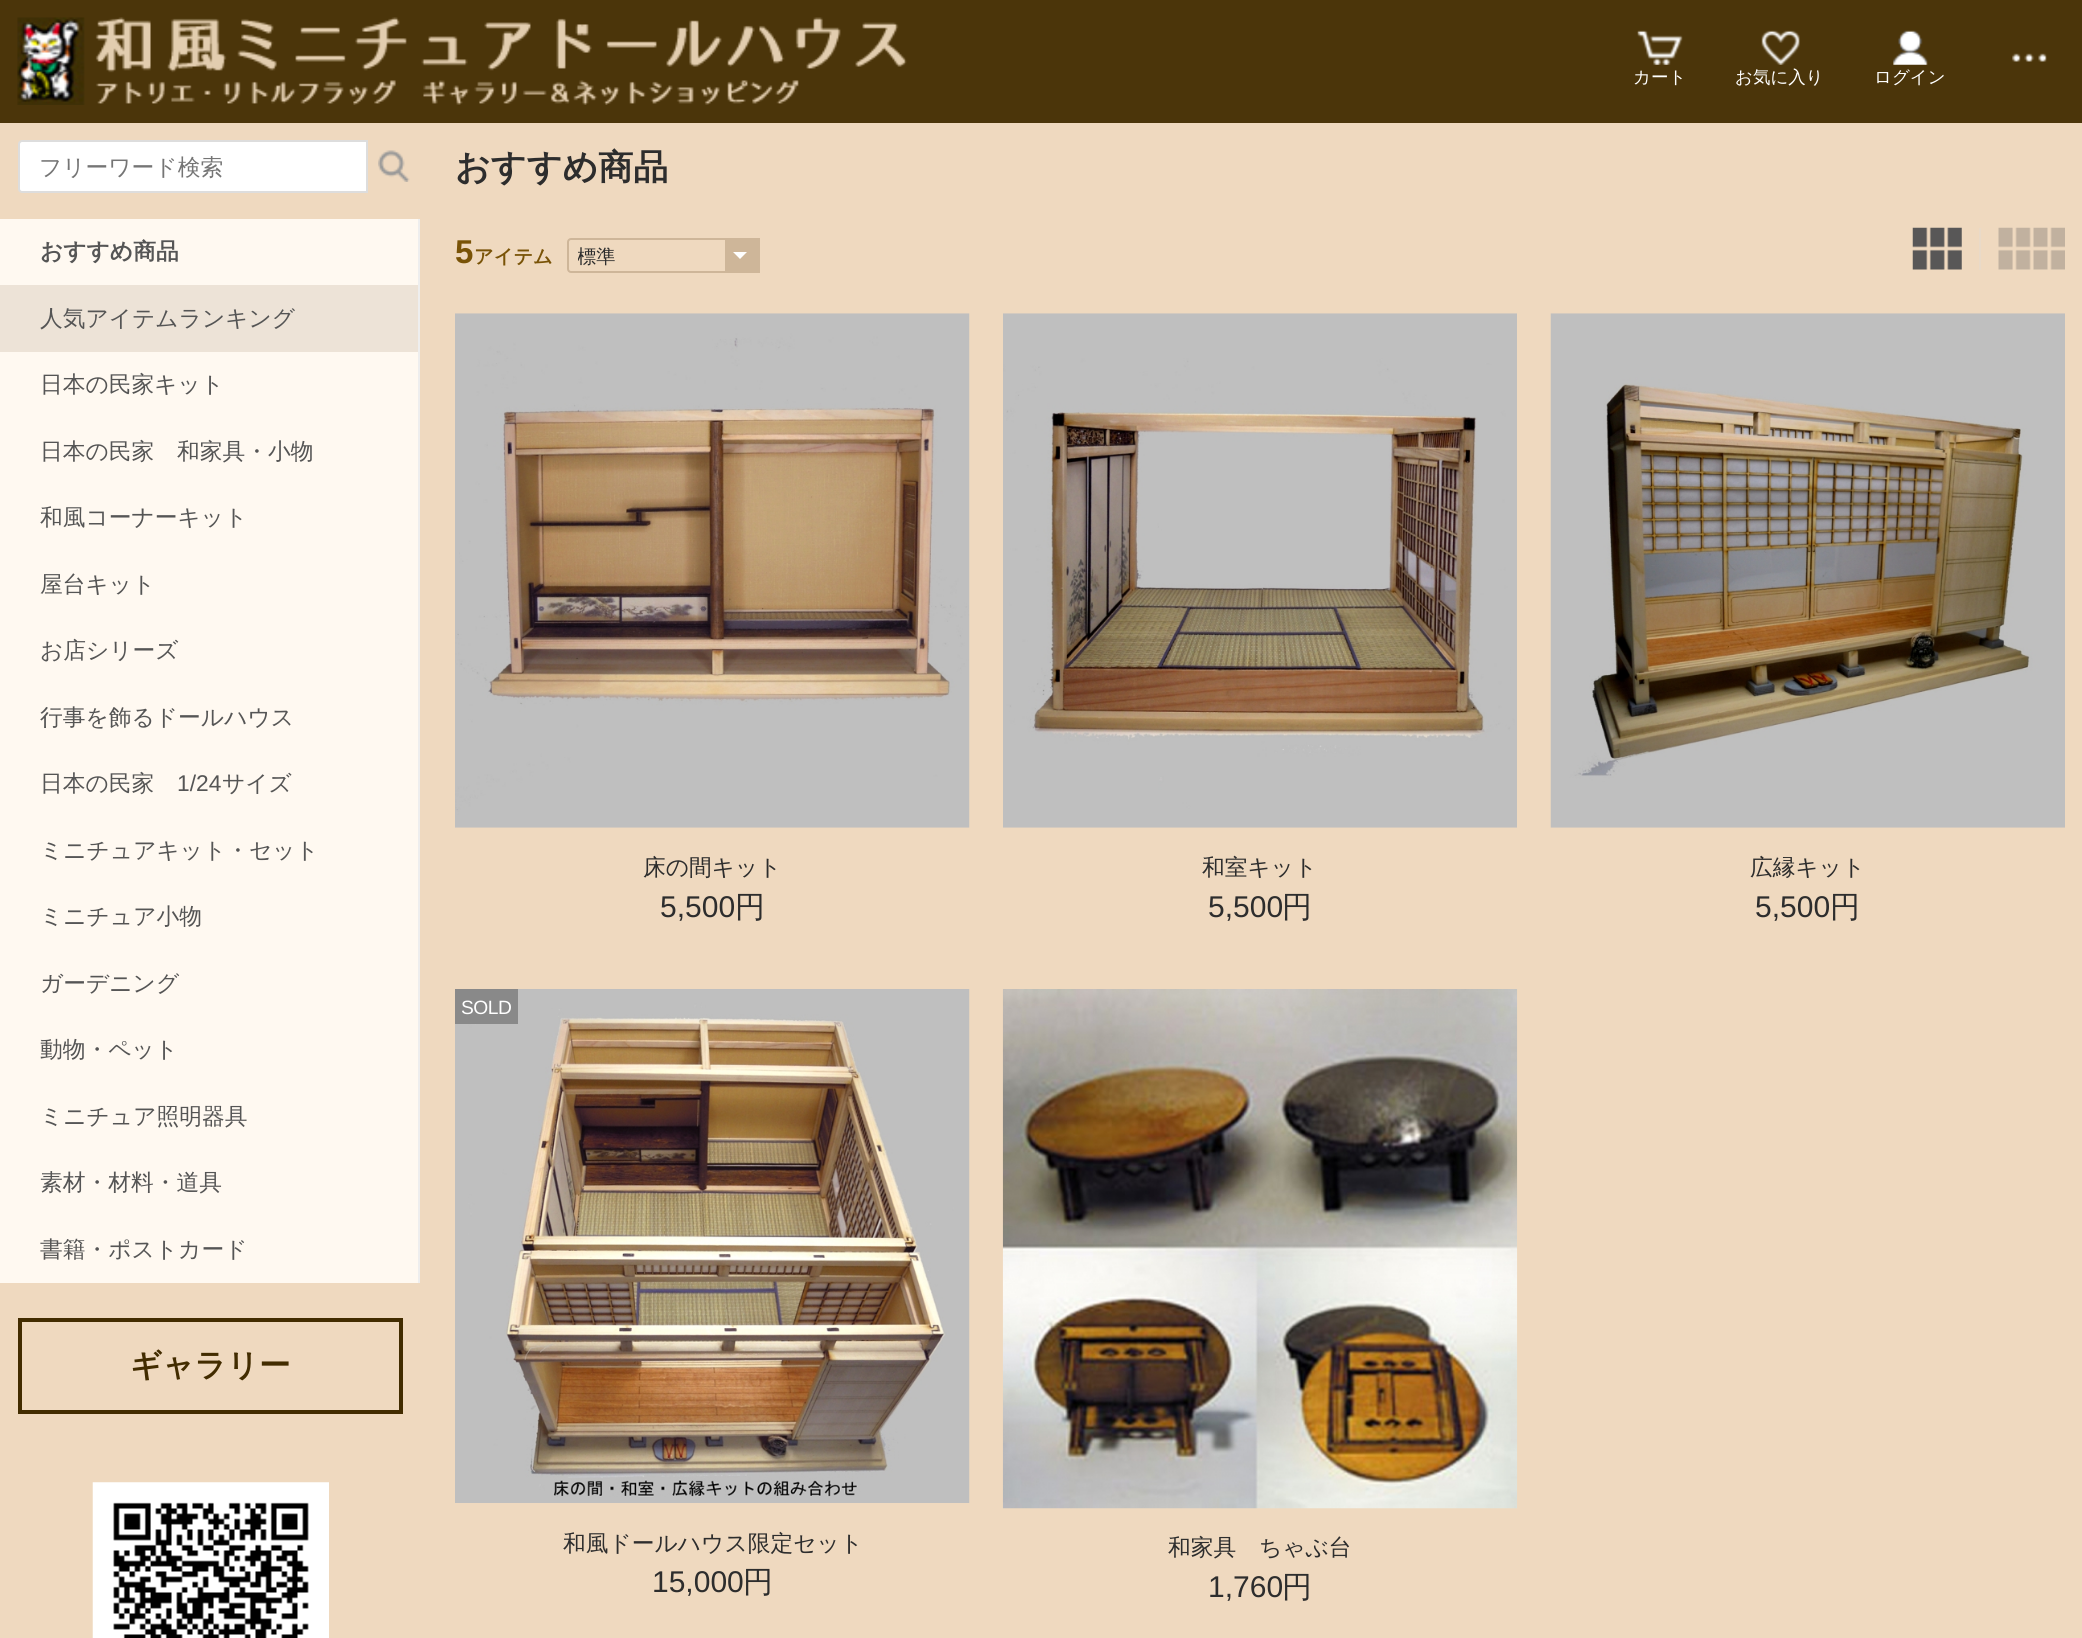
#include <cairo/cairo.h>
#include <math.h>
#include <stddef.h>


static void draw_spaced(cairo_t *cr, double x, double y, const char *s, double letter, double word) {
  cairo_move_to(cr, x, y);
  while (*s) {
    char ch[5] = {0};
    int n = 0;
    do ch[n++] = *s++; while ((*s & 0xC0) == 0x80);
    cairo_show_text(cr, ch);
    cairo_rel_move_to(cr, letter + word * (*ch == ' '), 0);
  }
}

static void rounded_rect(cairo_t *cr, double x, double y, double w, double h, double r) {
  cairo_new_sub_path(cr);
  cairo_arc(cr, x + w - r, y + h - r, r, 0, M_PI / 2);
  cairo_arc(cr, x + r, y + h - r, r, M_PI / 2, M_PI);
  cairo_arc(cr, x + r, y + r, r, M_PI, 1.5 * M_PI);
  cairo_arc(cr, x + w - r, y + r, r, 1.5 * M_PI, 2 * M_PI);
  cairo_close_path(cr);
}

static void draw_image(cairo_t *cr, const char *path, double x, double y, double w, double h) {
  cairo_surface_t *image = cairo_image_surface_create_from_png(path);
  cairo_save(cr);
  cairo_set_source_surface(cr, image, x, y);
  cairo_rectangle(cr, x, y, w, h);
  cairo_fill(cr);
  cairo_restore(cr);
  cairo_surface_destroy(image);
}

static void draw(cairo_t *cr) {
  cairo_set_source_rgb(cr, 239 / 255.0, 217 / 255.0, 191 / 255.0);
  cairo_paint(cr);
  cairo_set_source_rgb(cr, 75 / 255.0, 53 / 255.0, 10 / 255.0);
  cairo_rectangle(cr, 0, 0, 2082, 123);
  cairo_fill(cr);
  draw_image(cr, "images/1.png", 17, 17, 890, 88);
  draw_image(cr, "images/2.png", 2012, 53, 35, 9);
  draw_image(cr, "images/3.png", 1637, 30, 46, 35);
  draw_image(cr, "images/4.png", 1761, 30, 39, 35);
  draw_image(cr, "images/5.png", 1893, 30, 35, 35);
  cairo_set_source_rgb(cr, 1, 1, 1);
  cairo_new_path(cr);
  cairo_move_to(cr, 22, 141);
  cairo_line_to(cr, 367, 141);
  cairo_line_to(cr, 367, 192);
  cairo_line_to(cr, 22, 192);
  cairo_curve_to(cr, 20.5, 192, 19, 190.5, 19, 189);
  cairo_line_to(cr, 19, 144);
  cairo_curve_to(cr, 19, 142.5, 20.5, 141, 22, 141);
  cairo_close_path(cr);
  cairo_fill_preserve(cr);
  cairo_set_source_rgb(cr, 221 / 255.0, 221 / 255.0, 221 / 255.0);
  cairo_stroke(cr);
  draw_image(cr, "images/6.png", 378, 150, 32, 32);
  cairo_set_source_rgb(cr, 238 / 255.0, 238 / 255.0, 238 / 255.0);
  cairo_rectangle(cr, 418, 219, 2, 1064);
  cairo_fill(cr);
  cairo_set_source_rgb(cr, 1, 249 / 255.0, 241 / 255.0);
  cairo_rectangle(cr, 0, 219, 418, 66);
  cairo_fill(cr);
  cairo_set_source_rgb(cr, 237 / 255.0, 227 / 255.0, 215 / 255.0);
  cairo_rectangle(cr, 0, 285, 418, 67);
  cairo_fill(cr);
  cairo_set_source_rgb(cr, 1, 249 / 255.0, 241 / 255.0);
  cairo_rectangle(cr, 0, 352, 418, 931);
  cairo_fill(cr);
  cairo_rectangle(cr, 20, 1320, 381, 92);
  cairo_set_source_rgb(cr, 66 / 255.0, 44 / 255.0, 0);
  cairo_set_line_width(cr, 4);
  cairo_stroke(cr);
  draw_image(cr, "images/7.png", 92, 1482, 237, 156);
  cairo_set_source_rgb(cr, 206 / 255.0, 182 / 255.0, 153 / 255.0);
  cairo_rectangle(cr, 725, 238, 35, 35);
  cairo_fill(cr);
  cairo_set_source_rgb(cr, 1, 1, 1);
  cairo_new_path(cr);
  cairo_move_to(cr, 733, 252);
  cairo_line_to(cr, 747, 252);
  cairo_line_to(cr, 740, 259);
  cairo_close_path(cr);
  cairo_fill(cr);
  rounded_rect(cr, 568, 239, 191, 33, 3);
  cairo_set_source_rgb(cr, 206 / 255.0, 182 / 255.0, 153 / 255.0);
  cairo_set_line_width(cr, 2);
  cairo_stroke(cr);
  draw_image(cr, "images/8.png", 1912, 227, 50, 43);
  cairo_set_source_rgb(cr, 233 / 255.0, 218 / 255.0, 200 / 255.0);
  cairo_rectangle(cr, 1979, 228, 2, 42);
  cairo_fill(cr);
  draw_image(cr, "images/9.png", 1998, 227, 67, 43);
  draw_image(cr, "images/10.png", 455, 313, 515, 515);
  draw_image(cr, "images/11.png", 1003, 313, 514, 515);
  draw_image(cr, "images/12.png", 1550, 313, 515, 515);
  draw_image(cr, "images/13.png", 455, 989, 515, 514);
  cairo_set_source_rgba(cr, 131 / 255.0, 131 / 255.0, 131 / 255.0, 0.9);
  cairo_rectangle(cr, 455, 989, 63, 35);
  cairo_fill(cr);
  draw_image(cr, "images/14.png", 1002, 989, 516, 520);
  cairo_select_font_face(cr, "WenQuanYi Zen Hei Medium", CAIRO_FONT_SLANT_NORMAL, CAIRO_FONT_WEIGHT_NORMAL);
  cairo_set_font_size(cr, 17.5);
  cairo_set_source_rgb(cr, 1, 1, 1);
  cairo_move_to(cr, 1633, 83);
  cairo_show_text(cr, "カート");
  cairo_move_to(cr, 1735, 83);
  cairo_show_text(cr, "お気に入り");
  cairo_move_to(cr, 1874, 83);
  cairo_show_text(cr, "ログイン");
  cairo_set_font_size(cr, 22.75);
  cairo_set_source_rgb(cr, 117 / 255.0, 117 / 255.0, 117 / 255.0);
  cairo_move_to(cr, 39, 175);
  cairo_show_text(cr, "フリーワード検索");
  cairo_select_font_face(cr, "WenQuanYi Zen Hei", CAIRO_FONT_SLANT_NORMAL, CAIRO_FONT_WEIGHT_BOLD);
  cairo_set_source_rgb(cr, 85 / 255.0, 85 / 255.0, 85 / 255.0);
  cairo_move_to(cr, 40, 259);
  cairo_show_text(cr, "おすすめ商品");
  cairo_select_font_face(cr, "WenQuanYi Zen Hei Medium", CAIRO_FONT_SLANT_NORMAL, CAIRO_FONT_WEIGHT_NORMAL);
  cairo_move_to(cr, 40, 326);
  cairo_show_text(cr, "人気アイテムランキング");
  cairo_move_to(cr, 40, 392);
  cairo_show_text(cr, "日本の民家キット");
  cairo_move_to(cr, 40, 459);
  cairo_show_text(cr, "日本の民家　和家具・小物");
  cairo_move_to(cr, 40, 525);
  cairo_show_text(cr, "和風コーナーキット");
  cairo_move_to(cr, 40, 592);
  cairo_show_text(cr, "屋台キット");
  cairo_move_to(cr, 40, 658);
  cairo_show_text(cr, "お店シリーズ");
  cairo_move_to(cr, 40, 725);
  cairo_show_text(cr, "行事を飾るドールハウス");
  cairo_move_to(cr, 40, 791);
  cairo_show_text(cr, "日本の民家");
  cairo_select_font_face(cr, "Liberation Sans", CAIRO_FONT_SLANT_NORMAL, CAIRO_FONT_WEIGHT_NORMAL);
  cairo_move_to(cr, 177, 791);
  cairo_show_text(cr, "1/24");
  cairo_select_font_face(cr, "WenQuanYi Zen Hei Medium", CAIRO_FONT_SLANT_NORMAL, CAIRO_FONT_WEIGHT_NORMAL);
  cairo_move_to(cr, 222, 791);
  cairo_show_text(cr, "サイズ");
  cairo_move_to(cr, 40, 858);
  cairo_show_text(cr, "ミニチュアキット・セット");
  cairo_move_to(cr, 40, 924);
  cairo_show_text(cr, "ミニチュア小物");
  cairo_move_to(cr, 40, 991);
  cairo_show_text(cr, "ガーデニング");
  cairo_move_to(cr, 40, 1057);
  cairo_show_text(cr, "動物・ペット");
  cairo_move_to(cr, 40, 1124);
  cairo_show_text(cr, "ミニチュア照明器具");
  cairo_move_to(cr, 40, 1190);
  cairo_show_text(cr, "素材・材料・道具");
  cairo_move_to(cr, 40, 1257);
  cairo_show_text(cr, "書籍・ポストカード");
  cairo_select_font_face(cr, "WenQuanYi Zen Hei", CAIRO_FONT_SLANT_NORMAL, CAIRO_FONT_WEIGHT_BOLD);
  cairo_set_font_size(cr, 31.5);
  cairo_set_source_rgb(cr, 66 / 255.0, 44 / 255.0, 0);
  cairo_move_to(cr, 130, 1376);
  cairo_show_text(cr, "ギャラリー");
  cairo_set_font_size(cr, 35);
  cairo_set_source_rgb(cr, 45 / 255.0, 45 / 255.0, 45 / 255.0);
  cairo_move_to(cr, 455, 179);
  cairo_show_text(cr, "おすすめ商品");
  cairo_select_font_face(cr, "Liberation Sans", CAIRO_FONT_SLANT_NORMAL, CAIRO_FONT_WEIGHT_BOLD);
  cairo_set_font_size(cr, 33);
  cairo_set_source_rgb(cr, 121 / 255.0, 83 / 255.0, 7 / 255.0);
  cairo_move_to(cr, 455, 263);
  cairo_show_text(cr, "5");
  cairo_select_font_face(cr, "WenQuanYi Zen Hei", CAIRO_FONT_SLANT_NORMAL, CAIRO_FONT_WEIGHT_BOLD);
  cairo_set_font_size(cr, 19.25);
  cairo_move_to(cr, 474, 263);
  cairo_show_text(cr, "アイテム");
  cairo_save(cr);
  cairo_rectangle(cr, 578, 245, 136, 21);
  cairo_clip(cr);
  cairo_select_font_face(cr, "WenQuanYi Zen Hei Medium", CAIRO_FONT_SLANT_NORMAL, CAIRO_FONT_WEIGHT_NORMAL);
  cairo_set_source_rgb(cr, 45 / 255.0, 45 / 255.0, 45 / 255.0);
  cairo_move_to(cr, 577, 263);
  cairo_show_text(cr, "標準");
  cairo_restore(cr);
  cairo_select_font_face(cr, "WenQuanYi Zen Hei Medium", CAIRO_FONT_SLANT_NORMAL, CAIRO_FONT_WEIGHT_NORMAL);
  cairo_set_font_size(cr, 22.75);
  cairo_set_source_rgb(cr, 45 / 255.0, 45 / 255.0, 45 / 255.0);
  cairo_move_to(cr, 643, 875);
  cairo_show_text(cr, "床の間キット");
  cairo_select_font_face(cr, "Liberation Sans", CAIRO_FONT_SLANT_NORMAL, CAIRO_FONT_WEIGHT_NORMAL);
  cairo_set_font_size(cr, 30);
  cairo_move_to(cr, 660, 917);
  cairo_show_text(cr, "5,500");
  cairo_select_font_face(cr, "WenQuanYi Zen Hei Medium", CAIRO_FONT_SLANT_NORMAL, CAIRO_FONT_WEIGHT_NORMAL);
  cairo_move_to(cr, 735, 917);
  cairo_show_text(cr, "円");
  cairo_set_font_size(cr, 22.75);
  cairo_move_to(cr, 1202, 875);
  cairo_show_text(cr, "和室キット");
  cairo_select_font_face(cr, "Liberation Sans", CAIRO_FONT_SLANT_NORMAL, CAIRO_FONT_WEIGHT_NORMAL);
  cairo_set_font_size(cr, 30);
  cairo_move_to(cr, 1208, 917);
  cairo_show_text(cr, "5,500");
  cairo_select_font_face(cr, "WenQuanYi Zen Hei Medium", CAIRO_FONT_SLANT_NORMAL, CAIRO_FONT_WEIGHT_NORMAL);
  cairo_move_to(cr, 1282, 917);
  cairo_show_text(cr, "円");
  cairo_set_font_size(cr, 22.75);
  cairo_move_to(cr, 1750, 875);
  cairo_show_text(cr, "広縁キット");
  cairo_select_font_face(cr, "Liberation Sans", CAIRO_FONT_SLANT_NORMAL, CAIRO_FONT_WEIGHT_NORMAL);
  cairo_set_font_size(cr, 30);
  cairo_move_to(cr, 1755, 917);
  cairo_show_text(cr, "5,500");
  cairo_select_font_face(cr, "WenQuanYi Zen Hei Medium", CAIRO_FONT_SLANT_NORMAL, CAIRO_FONT_WEIGHT_NORMAL);
  cairo_move_to(cr, 1830, 917);
  cairo_show_text(cr, "円");
  cairo_select_font_face(cr, "Liberation Sans", CAIRO_FONT_SLANT_NORMAL, CAIRO_FONT_WEIGHT_NORMAL);
  cairo_set_font_size(cr, 19.25);
  cairo_set_source_rgb(cr, 1, 1, 1);
  draw_spaced(cr, 461, 1014, "SOLD", -0.5, 0);
  cairo_select_font_face(cr, "WenQuanYi Zen Hei Medium", CAIRO_FONT_SLANT_NORMAL, CAIRO_FONT_WEIGHT_NORMAL);
  cairo_set_font_size(cr, 22.75);
  cairo_set_source_rgb(cr, 45 / 255.0, 45 / 255.0, 45 / 255.0);
  cairo_move_to(cr, 563, 1551);
  cairo_show_text(cr, "和風ドールハウス限定セット");
  cairo_select_font_face(cr, "Liberation Sans", CAIRO_FONT_SLANT_NORMAL, CAIRO_FONT_WEIGHT_NORMAL);
  cairo_set_font_size(cr, 30);
  cairo_move_to(cr, 652, 1592);
  cairo_show_text(cr, "15,000");
  cairo_select_font_face(cr, "WenQuanYi Zen Hei Medium", CAIRO_FONT_SLANT_NORMAL, CAIRO_FONT_WEIGHT_NORMAL);
  cairo_move_to(cr, 743, 1592);
  cairo_show_text(cr, "円");
  cairo_set_font_size(cr, 22.75);
  cairo_move_to(cr, 1168, 1555);
  cairo_show_text(cr, "和家具　ちゃぶ台");
  cairo_select_font_face(cr, "Liberation Sans", CAIRO_FONT_SLANT_NORMAL, CAIRO_FONT_WEIGHT_NORMAL);
  cairo_set_font_size(cr, 30);
  cairo_move_to(cr, 1208, 1597);
  cairo_show_text(cr, "1,760");
  cairo_select_font_face(cr, "WenQuanYi Zen Hei Medium", CAIRO_FONT_SLANT_NORMAL, CAIRO_FONT_WEIGHT_NORMAL);
  cairo_move_to(cr, 1282, 1597);
  cairo_show_text(cr, "円");
}

int main(void) {
  cairo_surface_t *surface = cairo_image_surface_create(CAIRO_FORMAT_RGB24, 2082, 1638);
  cairo_t *cr = cairo_create(surface);
  cairo_font_options_t *options = cairo_font_options_create();
  cairo_font_options_set_hint_metrics(options, CAIRO_HINT_METRICS_OFF);
  cairo_font_options_set_hint_style(options, CAIRO_HINT_STYLE_NONE);
  cairo_set_font_options(cr, options);
  cairo_set_miter_limit(cr, 4);
  draw(cr);
  cairo_surface_write_to_png(surface, "out.png");
  cairo_font_options_destroy(options);
  cairo_destroy(cr);
  cairo_surface_destroy(surface);
  return 0;
}
